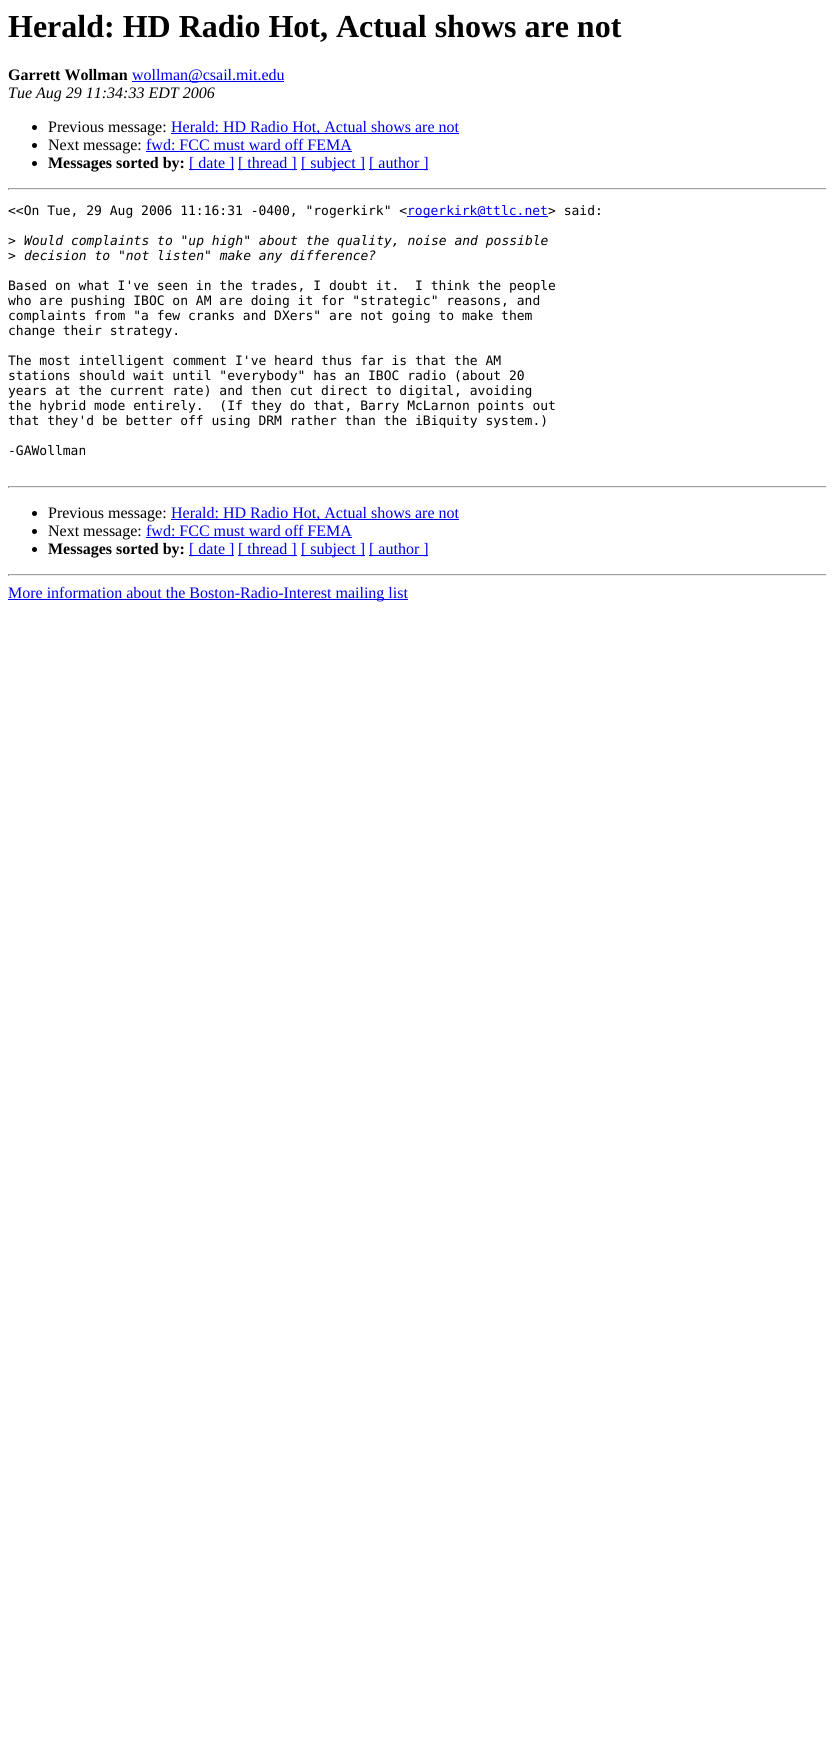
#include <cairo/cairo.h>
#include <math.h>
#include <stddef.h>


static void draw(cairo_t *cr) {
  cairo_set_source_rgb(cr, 1, 1, 1);
  cairo_paint(cr);
  cairo_set_source_rgb(cr, 0, 0, 238 / 255.0);
  cairo_rectangle(cr, 132, 81, 152, 1);
  cairo_fill(cr);
  cairo_set_source_rgb(cr, 0, 0, 0);
  cairo_arc(cr, 34.5, 127.5, 2.5, 0, 2 * M_PI);
  cairo_fill(cr);
  cairo_set_source_rgb(cr, 0, 0, 238 / 255.0);
  cairo_rectangle(cr, 171, 133, 288, 1);
  cairo_fill(cr);
  cairo_set_source_rgb(cr, 0, 0, 0);
  cairo_arc(cr, 34.5, 145.5, 2.5, 0, 2 * M_PI);
  cairo_fill(cr);
  cairo_set_source_rgb(cr, 0, 0, 238 / 255.0);
  cairo_rectangle(cr, 146, 151, 206, 1);
  cairo_fill(cr);
  cairo_set_source_rgb(cr, 0, 0, 0);
  cairo_arc(cr, 34.5, 163.5, 2.5, 0, 2 * M_PI);
  cairo_fill(cr);
  cairo_set_source_rgb(cr, 0, 0, 238 / 255.0);
  cairo_rectangle(cr, 189, 169, 45, 1);
  cairo_fill(cr);
  cairo_rectangle(cr, 238, 169, 59, 1);
  cairo_fill(cr);
  cairo_rectangle(cr, 301, 169, 64, 1);
  cairo_fill(cr);
  cairo_rectangle(cr, 369, 169, 59, 1);
  cairo_fill(cr);
  cairo_set_source_rgb(cr, 159 / 255.0, 159 / 255.0, 159 / 255.0);
  cairo_rectangle(cr, 8, 188, 819, 1);
  cairo_fill(cr);
  cairo_set_source_rgb(cr, 238 / 255.0, 238 / 255.0, 238 / 255.0);
  cairo_rectangle(cr, 826, 188, 1, 2);
  cairo_fill(cr);
  cairo_rectangle(cr, 8, 189, 819, 1);
  cairo_fill(cr);
  cairo_set_source_rgb(cr, 159 / 255.0, 159 / 255.0, 159 / 255.0);
  cairo_rectangle(cr, 8, 188, 1, 2);
  cairo_fill(cr);
  cairo_set_source_rgb(cr, 0, 0, 238 / 255.0);
  cairo_rectangle(cr, 407, 216, 141, 1);
  cairo_fill(cr);
  cairo_set_source_rgb(cr, 159 / 255.0, 159 / 255.0, 159 / 255.0);
  cairo_rectangle(cr, 8, 486, 819, 1);
  cairo_fill(cr);
  cairo_set_source_rgb(cr, 238 / 255.0, 238 / 255.0, 238 / 255.0);
  cairo_rectangle(cr, 826, 486, 1, 2);
  cairo_fill(cr);
  cairo_rectangle(cr, 8, 487, 819, 1);
  cairo_fill(cr);
  cairo_set_source_rgb(cr, 159 / 255.0, 159 / 255.0, 159 / 255.0);
  cairo_rectangle(cr, 8, 486, 1, 2);
  cairo_fill(cr);
  cairo_set_source_rgb(cr, 0, 0, 0);
  cairo_arc(cr, 34.5, 513.5, 2.5, 0, 2 * M_PI);
  cairo_fill(cr);
  cairo_set_source_rgb(cr, 0, 0, 238 / 255.0);
  cairo_rectangle(cr, 171, 519, 288, 1);
  cairo_fill(cr);
  cairo_set_source_rgb(cr, 0, 0, 0);
  cairo_arc(cr, 34.5, 531.5, 2.5, 0, 2 * M_PI);
  cairo_fill(cr);
  cairo_set_source_rgb(cr, 0, 0, 238 / 255.0);
  cairo_rectangle(cr, 146, 537, 206, 1);
  cairo_fill(cr);
  cairo_set_source_rgb(cr, 0, 0, 0);
  cairo_arc(cr, 34.5, 549.5, 2.5, 0, 2 * M_PI);
  cairo_fill(cr);
  cairo_set_source_rgb(cr, 0, 0, 238 / 255.0);
  cairo_rectangle(cr, 189, 555, 45, 1);
  cairo_fill(cr);
  cairo_rectangle(cr, 238, 555, 59, 1);
  cairo_fill(cr);
  cairo_rectangle(cr, 301, 555, 64, 1);
  cairo_fill(cr);
  cairo_rectangle(cr, 369, 555, 59, 1);
  cairo_fill(cr);
  cairo_set_source_rgb(cr, 159 / 255.0, 159 / 255.0, 159 / 255.0);
  cairo_rectangle(cr, 8, 574, 819, 1);
  cairo_fill(cr);
  cairo_set_source_rgb(cr, 238 / 255.0, 238 / 255.0, 238 / 255.0);
  cairo_rectangle(cr, 826, 574, 1, 2);
  cairo_fill(cr);
  cairo_rectangle(cr, 8, 575, 819, 1);
  cairo_fill(cr);
  cairo_set_source_rgb(cr, 159 / 255.0, 159 / 255.0, 159 / 255.0);
  cairo_rectangle(cr, 8, 574, 1, 2);
  cairo_fill(cr);
  cairo_set_source_rgb(cr, 0, 0, 238 / 255.0);
  cairo_rectangle(cr, 8, 599, 400, 1);
  cairo_fill(cr);
  cairo_select_font_face(cr, "Liberation Serif", CAIRO_FONT_SLANT_NORMAL, CAIRO_FONT_WEIGHT_BOLD);
  cairo_set_font_size(cr, 32);
  cairo_set_source_rgb(cr, 0, 0, 0);
  cairo_move_to(cr, 8, 37);
  cairo_show_text(cr, "Herald: HD Radio Hot, Actual shows are not");
  cairo_set_font_size(cr, 16);
  cairo_move_to(cr, 8, 80);
  cairo_show_text(cr, "Garrett Wollman");
  cairo_select_font_face(cr, "Liberation Serif", CAIRO_FONT_SLANT_NORMAL, CAIRO_FONT_WEIGHT_NORMAL);
  cairo_set_source_rgb(cr, 0, 0, 238 / 255.0);
  cairo_move_to(cr, 132, 80);
  cairo_show_text(cr, "wollman@csail.mit.edu");
  cairo_select_font_face(cr, "Liberation Serif", CAIRO_FONT_SLANT_ITALIC, CAIRO_FONT_WEIGHT_NORMAL);
  cairo_set_source_rgb(cr, 0, 0, 0);
  cairo_move_to(cr, 8, 98);
  cairo_show_text(cr, "Tue Aug 29 11:34:33 EDT 2006");
  cairo_select_font_face(cr, "Liberation Serif", CAIRO_FONT_SLANT_NORMAL, CAIRO_FONT_WEIGHT_NORMAL);
  cairo_move_to(cr, 48, 132);
  cairo_show_text(cr, "Previous message:");
  cairo_set_source_rgb(cr, 0, 0, 238 / 255.0);
  cairo_move_to(cr, 171, 132);
  cairo_show_text(cr, "Herald: HD Radio Hot, Actual shows are not");
  cairo_set_source_rgb(cr, 0, 0, 0);
  cairo_move_to(cr, 48, 150);
  cairo_show_text(cr, "Next message:");
  cairo_set_source_rgb(cr, 0, 0, 238 / 255.0);
  cairo_move_to(cr, 146, 150);
  cairo_show_text(cr, "fwd: FCC must ward off FEMA");
  cairo_select_font_face(cr, "Liberation Serif", CAIRO_FONT_SLANT_NORMAL, CAIRO_FONT_WEIGHT_BOLD);
  cairo_set_source_rgb(cr, 0, 0, 0);
  cairo_move_to(cr, 48, 168);
  cairo_show_text(cr, "Messages sorted by:");
  cairo_select_font_face(cr, "Liberation Serif", CAIRO_FONT_SLANT_NORMAL, CAIRO_FONT_WEIGHT_NORMAL);
  cairo_set_source_rgb(cr, 0, 0, 238 / 255.0);
  cairo_move_to(cr, 189, 168);
  cairo_show_text(cr, "[ date ]");
  cairo_move_to(cr, 238, 168);
  cairo_show_text(cr, "[ thread ]");
  cairo_move_to(cr, 301, 168);
  cairo_show_text(cr, "[ subject ]");
  cairo_move_to(cr, 369, 168);
  cairo_show_text(cr, "[ author ]");
  cairo_select_font_face(cr, "DejaVu Sans Mono", CAIRO_FONT_SLANT_NORMAL, CAIRO_FONT_WEIGHT_NORMAL);
  cairo_set_font_size(cr, 13);
  cairo_set_source_rgb(cr, 0, 0, 0);
  cairo_move_to(cr, 8, 215);
  cairo_show_text(cr, "<<On Tue, 29 Aug 2006 11:16:31 -0400, \"rogerkirk\" <");
  cairo_set_source_rgb(cr, 0, 0, 238 / 255.0);
  cairo_move_to(cr, 407, 215);
  cairo_show_text(cr, "rogerkirk@ttlc.net");
  cairo_set_source_rgb(cr, 0, 0, 0);
  cairo_move_to(cr, 548, 215);
  cairo_show_text(cr, "> said:");
  cairo_move_to(cr, 8, 245);
  cairo_show_text(cr, ">");
  cairo_select_font_face(cr, "DejaVu Sans Mono", CAIRO_FONT_SLANT_ITALIC, CAIRO_FONT_WEIGHT_NORMAL);
  cairo_move_to(cr, 24, 245);
  cairo_show_text(cr, "Would complaints to \"up high\" about the quality, noise and possible");
  cairo_select_font_face(cr, "DejaVu Sans Mono", CAIRO_FONT_SLANT_NORMAL, CAIRO_FONT_WEIGHT_NORMAL);
  cairo_move_to(cr, 8, 260);
  cairo_show_text(cr, ">");
  cairo_select_font_face(cr, "DejaVu Sans Mono", CAIRO_FONT_SLANT_ITALIC, CAIRO_FONT_WEIGHT_NORMAL);
  cairo_move_to(cr, 24, 260);
  cairo_show_text(cr, "decision to \"not listen\" make any difference?");
  cairo_select_font_face(cr, "DejaVu Sans Mono", CAIRO_FONT_SLANT_NORMAL, CAIRO_FONT_WEIGHT_NORMAL);
  cairo_move_to(cr, 8, 290);
  cairo_show_text(cr, "Based on what I've seen in the trades, I doubt it.  I think the people");
  cairo_move_to(cr, 8, 305);
  cairo_show_text(cr, "who are pushing IBOC on AM are doing it for \"strategic\" reasons, and");
  cairo_move_to(cr, 8, 320);
  cairo_show_text(cr, "complaints from \"a few cranks and DXers\" are not going to make them");
  cairo_move_to(cr, 8, 335);
  cairo_show_text(cr, "change their strategy.");
  cairo_move_to(cr, 8, 365);
  cairo_show_text(cr, "The most intelligent comment I've heard thus far is that the AM");
  cairo_move_to(cr, 8, 380);
  cairo_show_text(cr, "stations should wait until \"everybody\" has an IBOC radio (about 20");
  cairo_move_to(cr, 8, 395);
  cairo_show_text(cr, "years at the current rate) and then cut direct to digital, avoiding");
  cairo_move_to(cr, 8, 410);
  cairo_show_text(cr, "the hybrid mode entirely.  (If they do that, Barry McLarnon points out");
  cairo_move_to(cr, 8, 425);
  cairo_show_text(cr, "that they'd be better off using DRM rather than the iBiquity system.)");
  cairo_move_to(cr, 8, 455);
  cairo_show_text(cr, "-GAWollman");
  cairo_select_font_face(cr, "Liberation Serif", CAIRO_FONT_SLANT_NORMAL, CAIRO_FONT_WEIGHT_NORMAL);
  cairo_set_font_size(cr, 16);
  cairo_move_to(cr, 48, 518);
  cairo_show_text(cr, "Previous message:");
  cairo_set_source_rgb(cr, 0, 0, 238 / 255.0);
  cairo_move_to(cr, 171, 518);
  cairo_show_text(cr, "Herald: HD Radio Hot, Actual shows are not");
  cairo_set_source_rgb(cr, 0, 0, 0);
  cairo_move_to(cr, 48, 536);
  cairo_show_text(cr, "Next message:");
  cairo_set_source_rgb(cr, 0, 0, 238 / 255.0);
  cairo_move_to(cr, 146, 536);
  cairo_show_text(cr, "fwd: FCC must ward off FEMA");
  cairo_select_font_face(cr, "Liberation Serif", CAIRO_FONT_SLANT_NORMAL, CAIRO_FONT_WEIGHT_BOLD);
  cairo_set_source_rgb(cr, 0, 0, 0);
  cairo_move_to(cr, 48, 554);
  cairo_show_text(cr, "Messages sorted by:");
  cairo_select_font_face(cr, "Liberation Serif", CAIRO_FONT_SLANT_NORMAL, CAIRO_FONT_WEIGHT_NORMAL);
  cairo_set_source_rgb(cr, 0, 0, 238 / 255.0);
  cairo_move_to(cr, 189, 554);
  cairo_show_text(cr, "[ date ]");
  cairo_move_to(cr, 238, 554);
  cairo_show_text(cr, "[ thread ]");
  cairo_move_to(cr, 301, 554);
  cairo_show_text(cr, "[ subject ]");
  cairo_move_to(cr, 369, 554);
  cairo_show_text(cr, "[ author ]");
  cairo_move_to(cr, 8, 598);
  cairo_show_text(cr, "More information about the Boston-Radio-Interest mailing list");
}

int main(void) {
  cairo_surface_t *surface = cairo_image_surface_create(CAIRO_FORMAT_RGB24, 835, 1744);
  cairo_t *cr = cairo_create(surface);
  cairo_font_options_t *options = cairo_font_options_create();
  cairo_font_options_set_hint_metrics(options, CAIRO_HINT_METRICS_OFF);
  cairo_font_options_set_hint_style(options, CAIRO_HINT_STYLE_NONE);
  cairo_set_font_options(cr, options);
  cairo_set_miter_limit(cr, 4);
  draw(cr);
  cairo_surface_write_to_png(surface, "out.png");
  cairo_font_options_destroy(options);
  cairo_destroy(cr);
  cairo_surface_destroy(surface);
  return 0;
}
